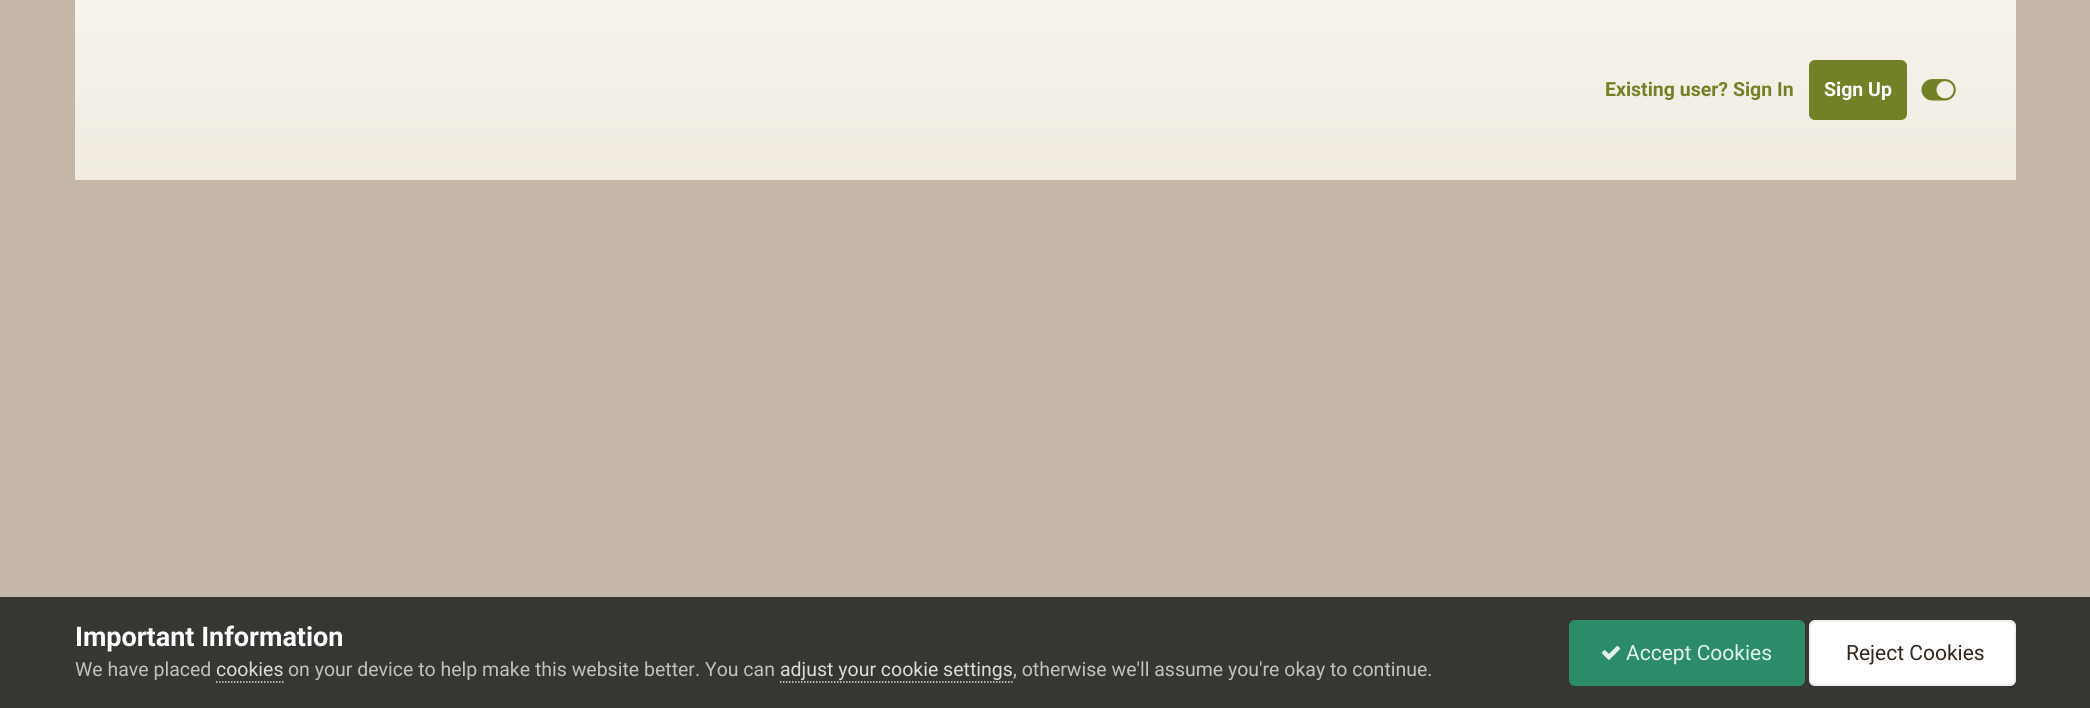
#include <cairo/cairo.h>
#include <math.h>
#include <stddef.h>


static void rounded_rect(cairo_t *cr, double x, double y, double w, double h, double r) {
  cairo_new_sub_path(cr);
  cairo_arc(cr, x + w - r, y + h - r, r, 0, M_PI / 2);
  cairo_arc(cr, x + r, y + h - r, r, M_PI / 2, M_PI);
  cairo_arc(cr, x + r, y + r, r, M_PI, 1.5 * M_PI);
  cairo_arc(cr, x + w - r, y + r, r, 1.5 * M_PI, 2 * M_PI);
  cairo_close_path(cr);
}

static void draw_image(cairo_t *cr, const char *path, double x, double y, double w, double h) {
  cairo_surface_t *image = cairo_image_surface_create_from_png(path);
  cairo_save(cr);
  cairo_set_source_surface(cr, image, x, y);
  cairo_rectangle(cr, x, y, w, h);
  cairo_fill(cr);
  cairo_restore(cr);
  cairo_surface_destroy(image);
}

static void draw(cairo_t *cr) {
  cairo_pattern_t *gradient;
  cairo_set_source_rgb(cr, 196 / 255.0, 183 / 255.0, 168 / 255.0);
  cairo_paint(cr);
  gradient = cairo_pattern_create_linear(1046, 0, 1046, 180);
  cairo_pattern_add_color_stop_rgba(gradient, 0, 246 / 255.0, 243 / 255.0, 237 / 255.0, 1);
  cairo_pattern_add_color_stop_rgba(gradient, 1, 241 / 255.0, 235 / 255.0, 224 / 255.0, 1);
  cairo_set_source(cr, gradient);
  cairo_pattern_destroy(gradient);
  cairo_rectangle(cr, 75, 0, 1941, 180);
  cairo_fill(cr);
  cairo_set_source_rgb(cr, 114 / 255.0, 129 / 255.0, 37 / 255.0);
  rounded_rect(cr, 1809, 60, 98, 60, 6);
  cairo_fill(cr);
  draw_image(cr, "images/1.png", 1921, 79, 35, 22);
  cairo_set_source_rgb(cr, 56 / 255.0, 54 / 255.0, 51 / 255.0);
  cairo_rectangle(cr, 0, 597, 2090, 111);
  cairo_fill(cr);
  cairo_new_path(cr);
  cairo_move_to(cr, 216, 682);
  cairo_line_to(cr, 283.5, 682);
  cairo_set_source_rgb(cr, 218 / 255.0, 218 / 255.0, 218 / 255.0);
  cairo_set_line_width(cr, 1.5);
  cairo_set_dash(cr, (double[]){1.5, 1.5}, 2, 0);
  cairo_stroke(cr);
  cairo_new_path(cr);
  cairo_move_to(cr, 780, 682);
  cairo_line_to(cr, 1012.5, 682);
  cairo_stroke(cr);
  cairo_set_source_rgb(cr, 44 / 255.0, 140 / 255.0, 105 / 255.0);
  rounded_rect(cr, 1569, 620, 236, 66, 6);
  cairo_fill(cr);
  draw_image(cr, "images/2.png", 1601, 645, 20, 15);
  cairo_set_source_rgb(cr, 1, 1, 1);
  rounded_rect(cr, 1809, 620, 207, 66, 6);
  cairo_fill(cr);
  rounded_rect(cr, 1810, 621, 205, 64, 5);
  cairo_set_source_rgba(cr, 51 / 255.0, 39 / 255.0, 27 / 255.0, 0.07);
  cairo_set_line_width(cr, 2);
  cairo_set_dash(cr, NULL, 0, 0);
  cairo_stroke(cr);
  cairo_select_font_face(cr, "Roboto", CAIRO_FONT_SLANT_NORMAL, CAIRO_FONT_WEIGHT_BOLD);
  cairo_set_font_size(cr, 19.5);
  cairo_set_source_rgb(cr, 114 / 255.0, 129 / 255.0, 37 / 255.0);
  cairo_move_to(cr, 1605, 96);
  cairo_show_text(cr, "Existing user? Sign In");
  cairo_set_source_rgb(cr, 1, 1, 1);
  cairo_move_to(cr, 1824, 96);
  cairo_show_text(cr, "Sign Up");
  cairo_set_font_size(cr, 27);
  cairo_move_to(cr, 75, 646);
  cairo_show_text(cr, "Important Information");
  cairo_select_font_face(cr, "Roboto", CAIRO_FONT_SLANT_NORMAL, CAIRO_FONT_WEIGHT_NORMAL);
  cairo_set_font_size(cr, 19.5);
  cairo_set_source_rgb(cr, 192 / 255.0, 192 / 255.0, 192 / 255.0);
  cairo_move_to(cr, 75, 676);
  cairo_show_text(cr, "We have placed");
  cairo_set_source_rgb(cr, 218 / 255.0, 218 / 255.0, 218 / 255.0);
  cairo_move_to(cr, 216, 676);
  cairo_show_text(cr, "cookies");
  cairo_set_source_rgb(cr, 192 / 255.0, 192 / 255.0, 192 / 255.0);
  cairo_move_to(cr, 288, 676);
  cairo_show_text(cr, "on your device to help make this website better. You can");
  cairo_set_source_rgb(cr, 218 / 255.0, 218 / 255.0, 218 / 255.0);
  cairo_move_to(cr, 780, 676);
  cairo_show_text(cr, "adjust your cookie settings");
  cairo_set_source_rgb(cr, 192 / 255.0, 192 / 255.0, 192 / 255.0);
  cairo_move_to(cr, 1013, 676);
  cairo_show_text(cr, ", otherwise we'll assume you're okay to continue.");
  cairo_set_font_size(cr, 21);
  cairo_set_source_rgb(cr, 227 / 255.0, 243 / 255.0, 236 / 255.0);
  cairo_move_to(cr, 1626, 660);
  cairo_show_text(cr, "Accept Cookies");
  cairo_set_source_rgb(cr, 51 / 255.0, 39 / 255.0, 27 / 255.0);
  cairo_move_to(cr, 1846, 660);
  cairo_show_text(cr, "Reject Cookies");
}

int main(void) {
  cairo_surface_t *surface = cairo_image_surface_create(CAIRO_FORMAT_RGB24, 2090, 708);
  cairo_t *cr = cairo_create(surface);
  cairo_font_options_t *options = cairo_font_options_create();
  cairo_font_options_set_hint_metrics(options, CAIRO_HINT_METRICS_OFF);
  cairo_font_options_set_hint_style(options, CAIRO_HINT_STYLE_NONE);
  cairo_set_font_options(cr, options);
  cairo_set_miter_limit(cr, 4);
  draw(cr);
  cairo_surface_write_to_png(surface, "out.png");
  cairo_font_options_destroy(options);
  cairo_destroy(cr);
  cairo_surface_destroy(surface);
  return 0;
}
